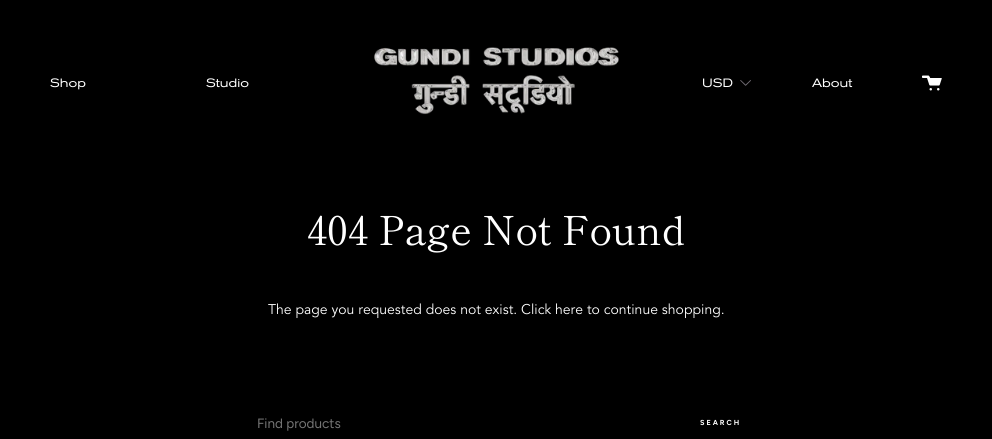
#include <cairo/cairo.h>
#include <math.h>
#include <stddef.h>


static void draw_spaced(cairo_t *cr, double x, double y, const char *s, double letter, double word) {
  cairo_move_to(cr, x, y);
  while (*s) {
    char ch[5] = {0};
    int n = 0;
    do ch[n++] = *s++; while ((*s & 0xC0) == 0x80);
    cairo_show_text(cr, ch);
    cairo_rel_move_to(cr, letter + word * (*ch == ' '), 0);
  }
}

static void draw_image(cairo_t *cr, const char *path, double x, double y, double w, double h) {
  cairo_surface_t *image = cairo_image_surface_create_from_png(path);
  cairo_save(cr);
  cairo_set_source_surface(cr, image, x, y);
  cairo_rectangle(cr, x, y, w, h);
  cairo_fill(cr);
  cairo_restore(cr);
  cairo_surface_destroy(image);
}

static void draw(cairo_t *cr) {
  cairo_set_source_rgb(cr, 0, 0, 0);
  cairo_paint(cr);
  draw_image(cr, "images/1.png", 374, 47, 245, 68);
  draw_image(cr, "images/2.png", 740, 80, 11, 6);
  draw_image(cr, "images/3.png", 922, 75, 20, 16);
  cairo_select_font_face(cr, "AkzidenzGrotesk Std", CAIRO_FONT_SLANT_NORMAL, CAIRO_FONT_WEIGHT_NORMAL);
  cairo_set_font_size(cr, 12);
  cairo_set_source_rgb(cr, 1, 1, 1);
  cairo_move_to(cr, 50, 87);
  cairo_show_text(cr, "Shop");
  cairo_move_to(cr, 206, 87);
  cairo_show_text(cr, "Studio");
  cairo_move_to(cr, 702, 87);
  cairo_show_text(cr, "USD");
  cairo_move_to(cr, 812, 87);
  cairo_show_text(cr, "About");
  cairo_select_font_face(cr, "Shippori Mincho", CAIRO_FONT_SLANT_NORMAL, CAIRO_FONT_WEIGHT_NORMAL);
  cairo_set_font_size(cr, 40);
  cairo_move_to(cr, 307, 245);
  cairo_show_text(cr, "404 Page Not Found");
  cairo_select_font_face(cr, "Avenir", CAIRO_FONT_SLANT_NORMAL, CAIRO_FONT_WEIGHT_NORMAL);
  cairo_set_font_size(cr, 14);
  cairo_move_to(cr, 268, 314);
  cairo_show_text(cr, "The page you requested does not exist. Click here to continue shopping.");
  cairo_select_font_face(cr, "Figtree", CAIRO_FONT_SLANT_NORMAL, CAIRO_FONT_WEIGHT_NORMAL);
  cairo_set_font_size(cr, 13.5);
  cairo_set_source_rgb(cr, 117 / 255.0, 117 / 255.0, 117 / 255.0);
  cairo_move_to(cr, 257, 428);
  cairo_show_text(cr, "Find products");
  cairo_select_font_face(cr, "Figtree", CAIRO_FONT_SLANT_NORMAL, CAIRO_FONT_WEIGHT_BOLD);
  cairo_set_font_size(cr, 7.25);
  cairo_set_source_rgb(cr, 1, 1, 1);
  draw_spaced(cr, 700, 425, "SEARCH", 2, 0);
}

int main(void) {
  cairo_surface_t *surface = cairo_image_surface_create(CAIRO_FORMAT_RGB24, 992, 439);
  cairo_t *cr = cairo_create(surface);
  cairo_font_options_t *options = cairo_font_options_create();
  cairo_font_options_set_hint_metrics(options, CAIRO_HINT_METRICS_OFF);
  cairo_font_options_set_hint_style(options, CAIRO_HINT_STYLE_NONE);
  cairo_set_font_options(cr, options);
  cairo_set_miter_limit(cr, 4);
  draw(cr);
  cairo_surface_write_to_png(surface, "out.png");
  cairo_font_options_destroy(options);
  cairo_destroy(cr);
  cairo_surface_destroy(surface);
  return 0;
}
